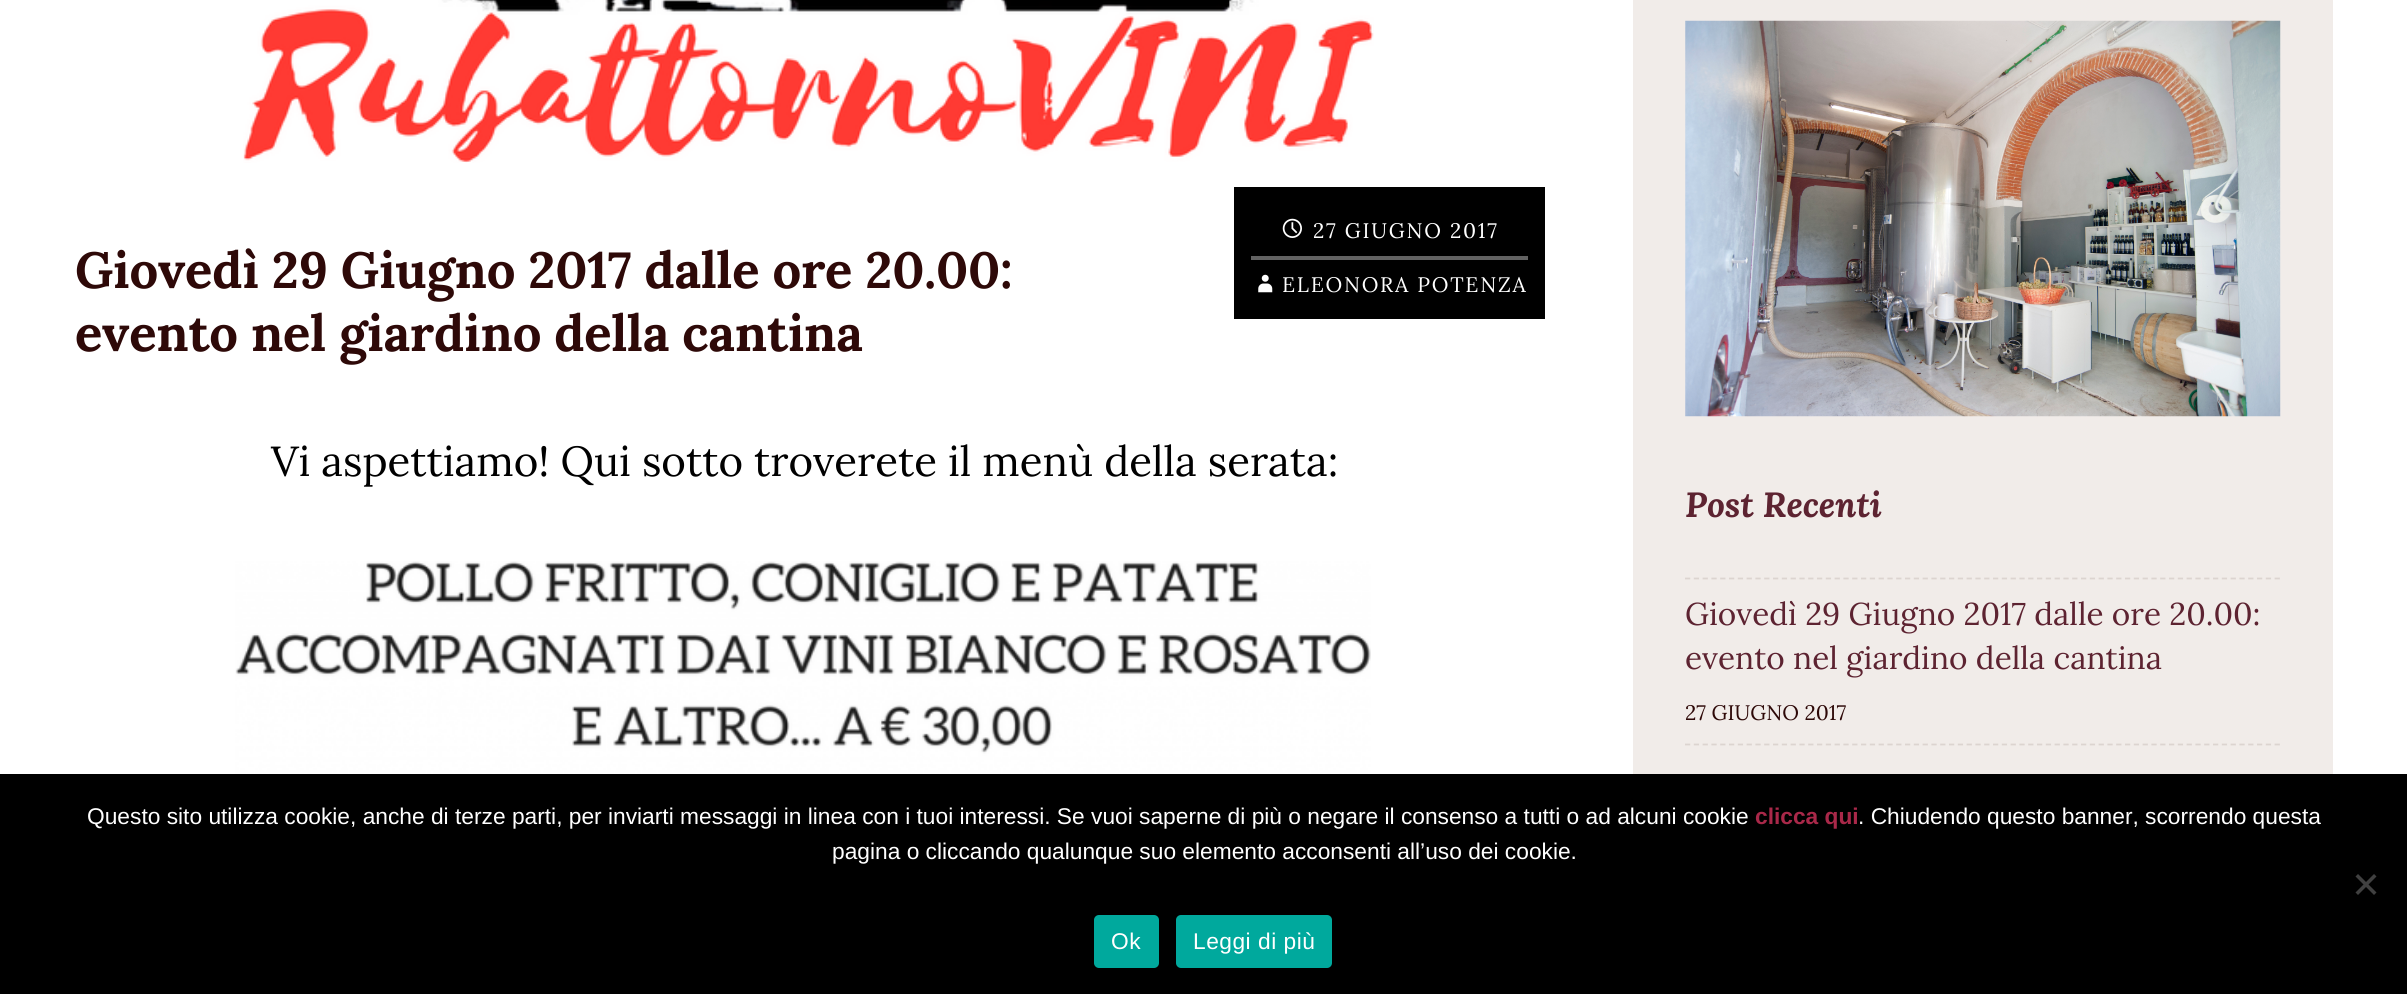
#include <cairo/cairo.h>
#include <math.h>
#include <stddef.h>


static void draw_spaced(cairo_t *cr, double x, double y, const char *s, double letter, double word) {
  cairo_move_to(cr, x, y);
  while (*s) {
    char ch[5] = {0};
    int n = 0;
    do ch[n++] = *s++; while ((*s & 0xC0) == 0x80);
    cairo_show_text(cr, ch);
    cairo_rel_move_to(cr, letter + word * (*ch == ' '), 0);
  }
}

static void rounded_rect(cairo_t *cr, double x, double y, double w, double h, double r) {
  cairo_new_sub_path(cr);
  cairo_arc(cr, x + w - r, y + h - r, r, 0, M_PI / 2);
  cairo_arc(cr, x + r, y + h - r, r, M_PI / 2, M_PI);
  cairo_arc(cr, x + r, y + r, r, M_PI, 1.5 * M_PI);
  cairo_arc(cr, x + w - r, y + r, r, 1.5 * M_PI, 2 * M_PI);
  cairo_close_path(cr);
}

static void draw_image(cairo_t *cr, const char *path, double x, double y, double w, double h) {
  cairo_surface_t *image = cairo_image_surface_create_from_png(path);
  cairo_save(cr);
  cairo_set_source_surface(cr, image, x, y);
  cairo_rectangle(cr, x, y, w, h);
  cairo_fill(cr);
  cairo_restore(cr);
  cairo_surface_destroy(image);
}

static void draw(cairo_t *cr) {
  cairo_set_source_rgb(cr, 1, 1, 1);
  cairo_paint(cr);
  draw_image(cr, "images/1.png", 243, 0, 1131, 163);
  cairo_set_source_rgb(cr, 0, 0, 0);
  cairo_rectangle(cr, 1234, 187, 311, 132);
  cairo_fill(cr);
  cairo_set_source_rgb(cr, 98 / 255.0, 98 / 255.0, 98 / 255.0);
  cairo_rectangle(cr, 1251, 256, 277, 4);
  cairo_fill(cr);
  draw_image(cr, "images/2.png", 1282, 218, 20, 20);
  draw_image(cr, "images/3.png", 1258, 274, 15, 19);
  draw_image(cr, "images/4.png", 235, 561, 1136, 213);
  cairo_set_source_rgb(cr, 241 / 255.0, 236 / 255.0, 233 / 255.0);
  cairo_rectangle(cr, 1633, 0, 700, 774);
  cairo_fill(cr);
  draw_image(cr, "images/5.png", 1685, 20, 596, 397);
  cairo_new_path(cr);
  cairo_move_to(cr, 1685, 578.5);
  cairo_line_to(cr, 2280, 578.5);
  cairo_set_source_rgb(cr, 220 / 255.0, 212 / 255.0, 208 / 255.0);
  cairo_set_line_width(cr, 1.8);
  cairo_set_dash(cr, (double[]){5.25, 3.55}, 2, 0);
  cairo_stroke(cr);
  cairo_new_path(cr);
  cairo_move_to(cr, 1685, 744.5);
  cairo_line_to(cr, 2280, 744.5);
  cairo_stroke(cr);
  cairo_set_source_rgb(cr, 0, 0, 0);
  cairo_rectangle(cr, 0, 774, 2407, 220);
  cairo_fill(cr);
  cairo_set_source_rgb(cr, 64 / 255.0, 64 / 255.0, 64 / 255.0);
  cairo_new_path(cr);
  cairo_move_to(cr, 2374, 874);
  cairo_line_to(cr, 2376.5, 876.5);
  cairo_line_to(cr, 2358, 895);
  cairo_line_to(cr, 2355.5, 892.5);
  cairo_close_path(cr);
  cairo_fill(cr);
  cairo_new_path(cr);
  cairo_move_to(cr, 2355.5, 876.5);
  cairo_line_to(cr, 2358, 874);
  cairo_line_to(cr, 2376.5, 892.5);
  cairo_line_to(cr, 2374, 895);
  cairo_close_path(cr);
  cairo_fill(cr);
  cairo_set_source_rgb(cr, 0, 169 / 255.0, 157 / 255.0);
  rounded_rect(cr, 1094, 915, 65, 53, 5);
  cairo_fill(cr);
  rounded_rect(cr, 1176, 915, 156, 53, 5);
  cairo_fill(cr);
  cairo_select_font_face(cr, "Lora", CAIRO_FONT_SLANT_NORMAL, CAIRO_FONT_WEIGHT_BOLD);
  cairo_set_font_size(cr, 50.75);
  cairo_set_source_rgb(cr, 46 / 255.0, 9 / 255.0, 8 / 255.0);
  draw_spaced(cr, 75, 288, "Giovedì 29 Giugno 2017 dalle ore 20.00:", -0.2, 0);
  draw_spaced(cr, 75, 351, "evento nel giardino della cantina", -0.2, 0);
  cairo_select_font_face(cr, "Lora", CAIRO_FONT_SLANT_NORMAL, CAIRO_FONT_WEIGHT_NORMAL);
  cairo_set_font_size(cr, 21);
  cairo_set_source_rgb(cr, 1, 1, 1);
  draw_spaced(cr, 1313, 238, "27 GIUGNO 2017", 1.75, 0);
  draw_spaced(cr, 1282, 292, "ELEONORA POTENZA", 1.75, 0);
  cairo_set_font_size(cr, 42);
  cairo_set_source_rgb(cr, 0, 0, 0);
  cairo_move_to(cr, 271, 476);
  cairo_show_text(cr, "Vi aspettiamo! Qui sotto troverete il menù della serata:");
  cairo_select_font_face(cr, "Lora", CAIRO_FONT_SLANT_ITALIC, CAIRO_FONT_WEIGHT_BOLD);
  cairo_set_font_size(cr, 35);
  cairo_set_source_rgb(cr, 93 / 255.0, 35 / 255.0, 49 / 255.0);
  draw_spaced(cr, 1685, 517, "Post Recenti", -0.2, 0);
  cairo_select_font_face(cr, "Lora", CAIRO_FONT_SLANT_NORMAL, CAIRO_FONT_WEIGHT_NORMAL);
  cairo_set_font_size(cr, 31.5);
  cairo_move_to(cr, 1685, 625);
  cairo_show_text(cr, "Giovedì 29 Giugno 2017 dalle ore 20.00:");
  cairo_move_to(cr, 1685, 669);
  cairo_show_text(cr, "evento nel giardino della cantina");
  cairo_set_font_size(cr, 21);
  cairo_set_source_rgb(cr, 46 / 255.0, 9 / 255.0, 8 / 255.0);
  cairo_move_to(cr, 1685, 720);
  cairo_show_text(cr, "27 GIUGNO 2017");
  cairo_select_font_face(cr, "Liberation Sans", CAIRO_FONT_SLANT_NORMAL, CAIRO_FONT_WEIGHT_NORMAL);
  cairo_set_font_size(cr, 22.75);
  cairo_set_source_rgb(cr, 1, 1, 1);
  cairo_move_to(cr, 87, 824);
  cairo_show_text(cr, "Questo sito utilizza cookie, anche di terze parti, per inviarti messaggi in linea con i tuoi interessi. Se vuoi saperne di più o negare il consenso a tutti o ad alcuni cookie");
  cairo_select_font_face(cr, "Liberation Sans", CAIRO_FONT_SLANT_NORMAL, CAIRO_FONT_WEIGHT_BOLD);
  cairo_set_source_rgb(cr, 169 / 255.0, 40 / 255.0, 73 / 255.0);
  cairo_move_to(cr, 1755, 824);
  cairo_show_text(cr, "clicca qui");
  cairo_select_font_face(cr, "Liberation Sans", CAIRO_FONT_SLANT_NORMAL, CAIRO_FONT_WEIGHT_NORMAL);
  cairo_set_source_rgb(cr, 1, 1, 1);
  cairo_move_to(cr, 1858, 824);
  cairo_show_text(cr, ". Chiudendo questo banner, scorrendo questa");
  cairo_move_to(cr, 832, 859);
  cairo_show_text(cr, "pagina o cliccando qualunque suo elemento acconsenti all’uso dei cookie.");
  draw_spaced(cr, 1111, 949, "Ok", 0.5, 0);
  draw_spaced(cr, 1193, 949, "Leggi di più", 0.5, 0);
}

int main(void) {
  cairo_surface_t *surface = cairo_image_surface_create(CAIRO_FORMAT_RGB24, 2407, 994);
  cairo_t *cr = cairo_create(surface);
  cairo_font_options_t *options = cairo_font_options_create();
  cairo_font_options_set_hint_metrics(options, CAIRO_HINT_METRICS_OFF);
  cairo_font_options_set_hint_style(options, CAIRO_HINT_STYLE_NONE);
  cairo_set_font_options(cr, options);
  cairo_set_miter_limit(cr, 4);
  draw(cr);
  cairo_surface_write_to_png(surface, "out.png");
  cairo_font_options_destroy(options);
  cairo_destroy(cr);
  cairo_surface_destroy(surface);
  return 0;
}
